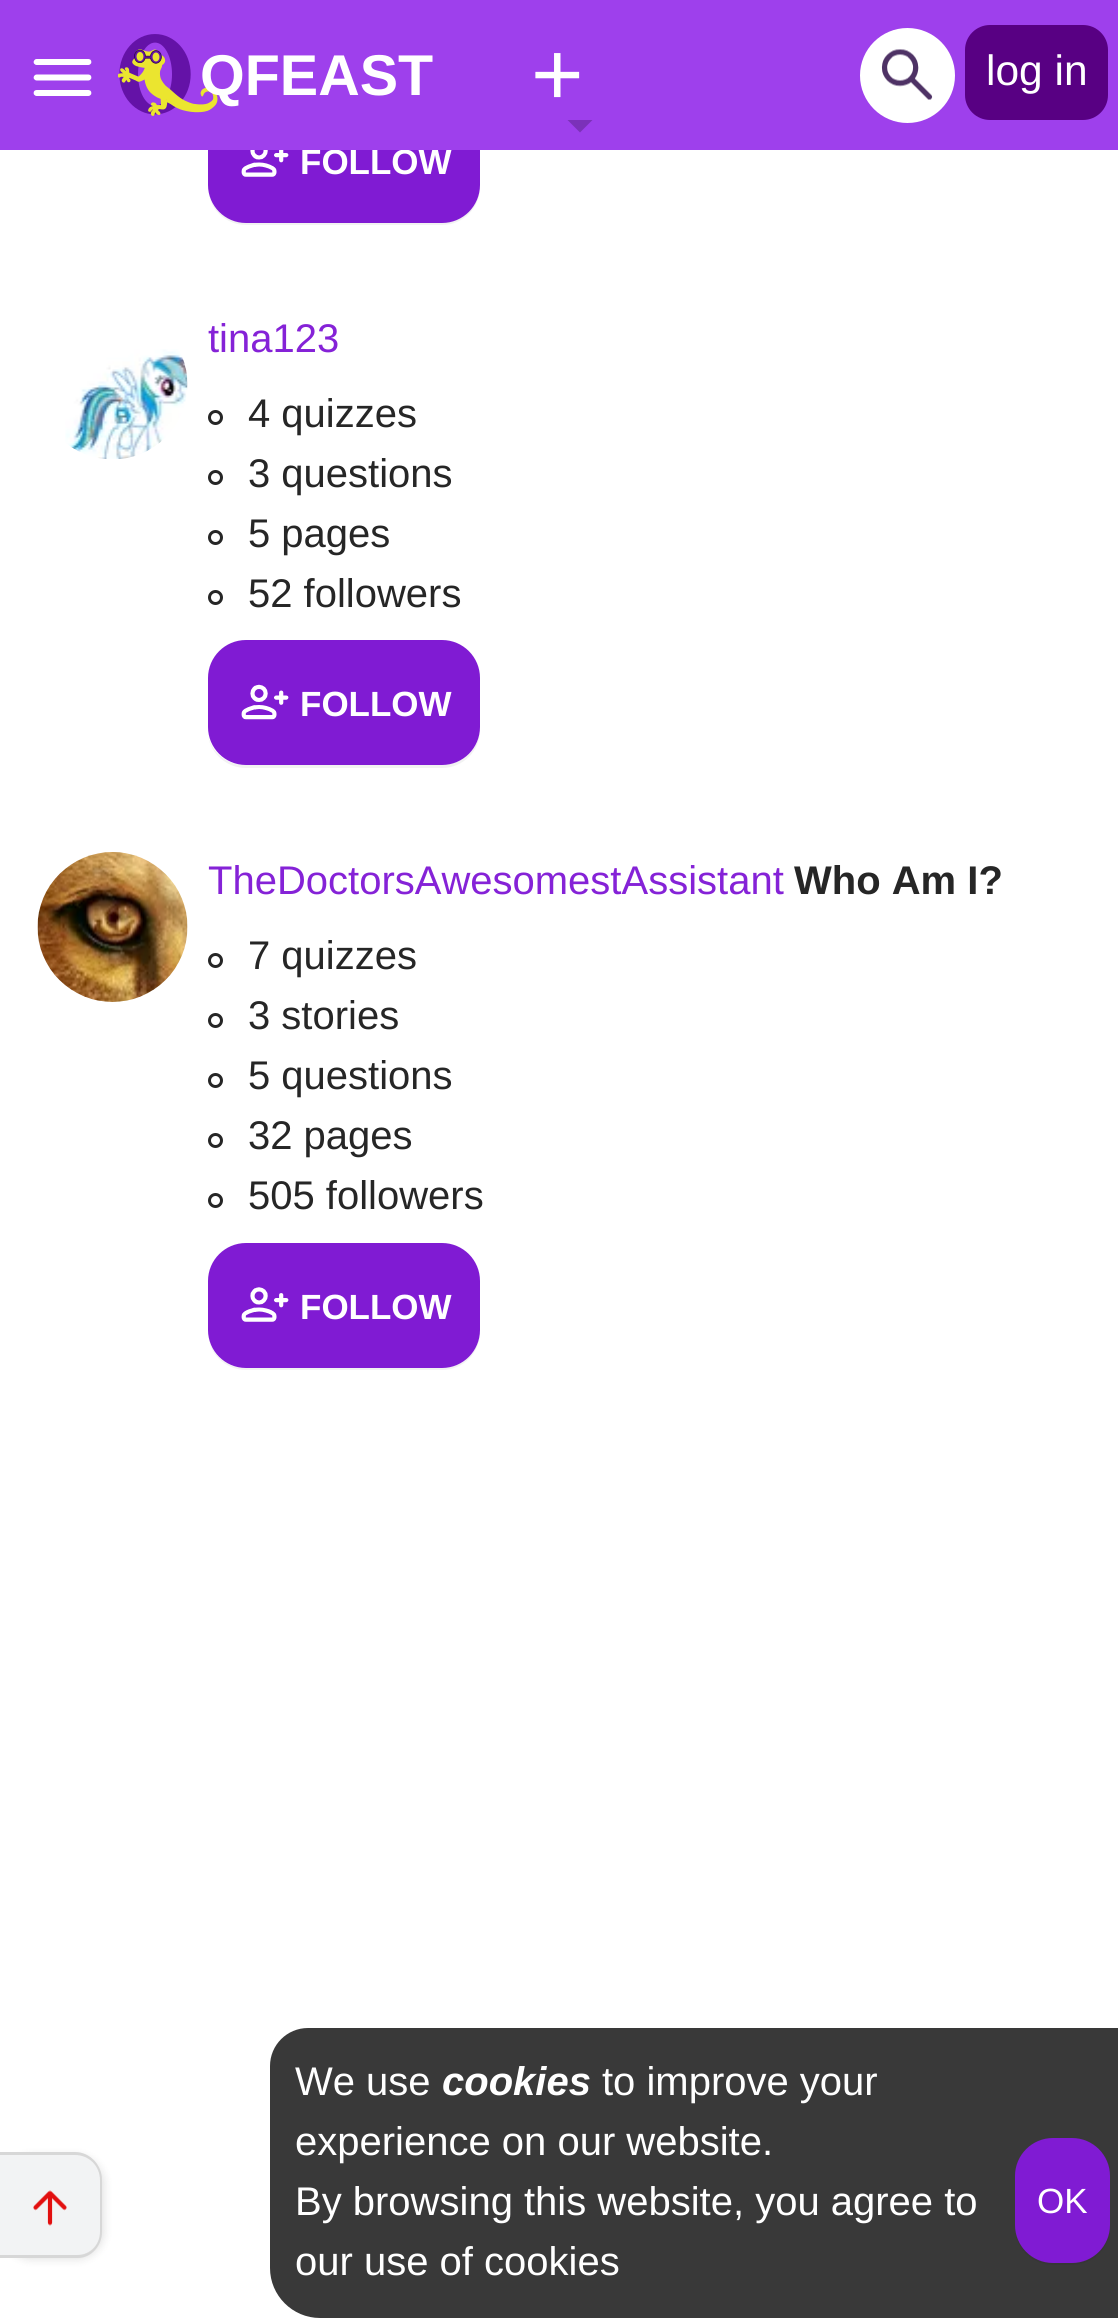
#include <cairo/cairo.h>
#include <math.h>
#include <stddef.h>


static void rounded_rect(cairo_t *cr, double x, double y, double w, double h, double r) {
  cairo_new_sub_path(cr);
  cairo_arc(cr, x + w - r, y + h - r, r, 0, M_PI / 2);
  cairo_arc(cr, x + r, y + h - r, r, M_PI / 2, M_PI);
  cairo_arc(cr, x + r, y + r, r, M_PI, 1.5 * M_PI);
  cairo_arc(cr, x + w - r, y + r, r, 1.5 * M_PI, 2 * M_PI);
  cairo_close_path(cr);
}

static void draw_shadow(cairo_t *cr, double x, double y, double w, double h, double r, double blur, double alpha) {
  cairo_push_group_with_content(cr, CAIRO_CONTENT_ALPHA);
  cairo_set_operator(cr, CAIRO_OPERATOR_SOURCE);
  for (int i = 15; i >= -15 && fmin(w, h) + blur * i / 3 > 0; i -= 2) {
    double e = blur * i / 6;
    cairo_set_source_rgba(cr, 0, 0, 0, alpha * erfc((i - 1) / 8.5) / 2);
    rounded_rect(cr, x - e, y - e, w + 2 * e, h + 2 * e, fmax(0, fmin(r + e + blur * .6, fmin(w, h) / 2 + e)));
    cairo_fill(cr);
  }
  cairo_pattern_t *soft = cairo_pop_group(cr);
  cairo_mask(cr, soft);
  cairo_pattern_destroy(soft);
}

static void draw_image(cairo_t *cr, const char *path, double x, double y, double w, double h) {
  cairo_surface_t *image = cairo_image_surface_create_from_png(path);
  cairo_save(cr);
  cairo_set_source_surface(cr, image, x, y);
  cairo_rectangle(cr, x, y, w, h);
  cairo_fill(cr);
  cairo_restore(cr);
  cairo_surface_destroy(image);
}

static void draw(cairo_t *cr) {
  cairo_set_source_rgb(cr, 1, 1, 1);
  cairo_paint(cr);
  cairo_set_source_rgb(cr, 0, 0, 0);
  draw_shadow(cr, 3, 2155, 102, 105, 28, 4, 0.1);
  cairo_set_source_rgb(cr, 242 / 255.0, 243 / 255.0, 244 / 255.0);
  cairo_new_path(cr);
  cairo_move_to(cr, 0, 2155);
  cairo_line_to(cr, 75, 2155);
  cairo_curve_to(cr, 89, 2155, 100, 2166, 100, 2180);
  cairo_line_to(cr, 100, 2232);
  cairo_curve_to(cr, 100, 2244.5, 89.5, 2255, 77, 2255);
  cairo_line_to(cr, 0, 2255);
  cairo_close_path(cr);
  cairo_fill(cr);
  cairo_set_source_rgb(cr, 215 / 255.0, 215 / 255.0, 215 / 255.0);
  cairo_set_fill_rule(cr, CAIRO_FILL_RULE_EVEN_ODD);
  cairo_new_path(cr);
  cairo_move_to(cr, 0, 2152);
  cairo_line_to(cr, 75, 2152);
  cairo_curve_to(cr, 90, 2152, 102, 2165, 102, 2180);
  cairo_line_to(cr, 102, 2232);
  cairo_curve_to(cr, 102, 2246, 91, 2258, 78, 2258);
  cairo_line_to(cr, 0, 2258);
  cairo_close_path(cr);
  cairo_move_to(cr, 0, 2155);
  cairo_line_to(cr, 75, 2155);
  cairo_curve_to(cr, 89, 2155, 100, 2166, 100, 2180);
  cairo_line_to(cr, 100, 2232);
  cairo_curve_to(cr, 100, 2245, 90, 2255, 78, 2255);
  cairo_line_to(cr, 0, 2255);
  cairo_close_path(cr);
  cairo_fill(cr);
  draw_image(cr, "images/4.png", 33, 2190, 34, 36);
  cairo_set_source_rgb(cr, 242 / 255.0, 242 / 255.0, 242 / 255.0);
  cairo_set_fill_rule(cr, CAIRO_FILL_RULE_WINDING);
  cairo_new_path(cr);
  cairo_move_to(cr, 209, 195);
  cairo_curve_to(cr, 212, 212, 228, 225, 246, 225);
  cairo_line_to(cr, 442, 225);
  cairo_curve_to(cr, 463, 225, 480, 208, 480, 187);
  cairo_line_to(cr, 480, 185);
  cairo_curve_to(cr, 480, 206, 463, 222, 442, 222);
  cairo_line_to(cr, 245, 222);
  cairo_curve_to(cr, 228, 222, 213, 211, 209, 195);
  cairo_close_path(cr);
  cairo_fill(cr);
  cairo_set_source_rgb(cr, 128 / 255.0, 27 / 255.0, 211 / 255.0);
  rounded_rect(cr, 209.5, 99.5, 269, 122, 36.5);
  cairo_fill_preserve(cr);
  cairo_set_line_width(cr, 3);
  cairo_stroke(cr);
  draw_image(cr, "images/5.png", 241, 150, 48, 27);
  draw_image(cr, "images/6.png", 65, 349, 123, 110);
  cairo_arc(cr, 215.5, 417.5, 6, 0, 2 * M_PI);
  cairo_set_source_rgb(cr, 38 / 255.0, 38 / 255.0, 38 / 255.0);
  cairo_stroke(cr);
  cairo_arc(cr, 215.5, 477.5, 6, 0, 2 * M_PI);
  cairo_stroke(cr);
  cairo_arc(cr, 215.5, 537.5, 6, 0, 2 * M_PI);
  cairo_stroke(cr);
  cairo_arc(cr, 215.5, 597.5, 6, 0, 2 * M_PI);
  cairo_stroke(cr);
  cairo_set_source_rgb(cr, 242 / 255.0, 242 / 255.0, 242 / 255.0);
  cairo_new_path(cr);
  cairo_move_to(cr, 208, 736);
  cairo_curve_to(cr, 211, 754, 227, 768, 246, 768);
  cairo_line_to(cr, 442, 768);
  cairo_curve_to(cr, 463, 768, 480, 751, 480, 730);
  cairo_line_to(cr, 480, 728);
  cairo_curve_to(cr, 480, 748, 463, 765, 442, 765);
  cairo_line_to(cr, 245, 765);
  cairo_curve_to(cr, 227, 765, 212, 753, 208, 736);
  cairo_close_path(cr);
  cairo_fill(cr);
  cairo_set_source_rgb(cr, 128 / 255.0, 27 / 255.0, 211 / 255.0);
  rounded_rect(cr, 209.5, 641.5, 269, 122, 36.5);
  cairo_fill_preserve(cr);
  cairo_stroke(cr);
  draw_image(cr, "images/7.png", 241, 684, 48, 36);
  draw_image(cr, "images/8.png", 37, 852, 151, 150);
  cairo_arc(cr, 215.5, 960.5, 6, 0, 2 * M_PI);
  cairo_set_source_rgb(cr, 38 / 255.0, 38 / 255.0, 38 / 255.0);
  cairo_stroke(cr);
  cairo_arc(cr, 215.5, 1020.5, 6, 0, 2 * M_PI);
  cairo_stroke(cr);
  cairo_arc(cr, 215.5, 1080.5, 6, 0, 2 * M_PI);
  cairo_stroke(cr);
  cairo_arc(cr, 215.5, 1140.5, 6, 0, 2 * M_PI);
  cairo_stroke(cr);
  cairo_arc(cr, 215.5, 1200.5, 6, 0, 2 * M_PI);
  cairo_stroke(cr);
  cairo_set_source_rgb(cr, 242 / 255.0, 242 / 255.0, 242 / 255.0);
  cairo_new_path(cr);
  cairo_move_to(cr, 209, 1340);
  cairo_curve_to(cr, 212, 1357, 228, 1370, 246, 1370);
  cairo_line_to(cr, 442, 1370);
  cairo_curve_to(cr, 463, 1370, 480, 1353, 480, 1332);
  cairo_line_to(cr, 480, 1330);
  cairo_curve_to(cr, 480, 1351, 463, 1368, 442, 1368);
  cairo_line_to(cr, 245, 1368);
  cairo_curve_to(cr, 228, 1368, 213, 1356, 209, 1340);
  cairo_close_path(cr);
  cairo_fill(cr);
  cairo_set_source_rgb(cr, 128 / 255.0, 27 / 255.0, 211 / 255.0);
  rounded_rect(cr, 209.5, 1244.5, 269, 122, 36.5);
  cairo_fill_preserve(cr);
  cairo_stroke(cr);
  draw_image(cr, "images/9.png", 241, 1287, 48, 35);
  cairo_set_source_rgb(cr, 57 / 255.0, 57 / 255.0, 57 / 255.0);
  cairo_new_path(cr);
  cairo_move_to(cr, 308, 2028);
  cairo_line_to(cr, 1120, 2028);
  cairo_line_to(cr, 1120, 2318);
  cairo_line_to(cr, 320, 2318);
  cairo_curve_to(cr, 292.5, 2318, 270, 2295.5, 270, 2268);
  cairo_line_to(cr, 270, 2066);
  cairo_curve_to(cr, 270, 2045, 287, 2028, 308, 2028);
  cairo_close_path(cr);
  cairo_fill(cr);
  cairo_set_source_rgb(cr, 54 / 255.0, 54 / 255.0, 54 / 255.0);
  cairo_new_path(cr);
  cairo_move_to(cr, 1015, 2225);
  cairo_line_to(cr, 1015, 2227);
  cairo_curve_to(cr, 1015, 2248, 1032, 2265, 1053, 2265);
  cairo_line_to(cr, 1072, 2265);
  cairo_curve_to(cr, 1093, 2265, 1110, 2248, 1110, 2227);
  cairo_line_to(cr, 1110, 2225);
  cairo_curve_to(cr, 1110, 2246, 1093, 2262, 1072, 2262);
  cairo_line_to(cr, 1052, 2262);
  cairo_curve_to(cr, 1032, 2262, 1015, 2246, 1015, 2225);
  cairo_close_path(cr);
  cairo_fill(cr);
  cairo_set_source_rgb(cr, 128 / 255.0, 27 / 255.0, 211 / 255.0);
  rounded_rect(cr, 1016.5, 2139.5, 92, 122, 36.5);
  cairo_fill_preserve(cr);
  cairo_stroke(cr);
  cairo_select_font_face(cr, "Liberation Sans", CAIRO_FONT_SLANT_NORMAL, CAIRO_FONT_WEIGHT_BOLD);
  cairo_set_font_size(cr, 35);
  cairo_set_source_rgb(cr, 1, 1, 1);
  cairo_move_to(cr, 300, 174);
  cairo_show_text(cr, "FOLLOW");
  cairo_set_source_rgb(cr, 158 / 255.0, 64 / 255.0, 236 / 255.0);
  cairo_rectangle(cr, 0, 0, 1118, 150);
  cairo_fill(cr);
  cairo_set_source_rgb(cr, 1, 1, 1);
  cairo_arc(cr, 907.5, 75.5, 47.5, 0, 2 * M_PI);
  cairo_fill(cr);
  draw_image(cr, "images/3.png", 881, 49, 52, 51);
  cairo_set_source_rgb(cr, 123 / 255.0, 49 / 255.0, 185 / 255.0);
  cairo_new_path(cr);
  cairo_move_to(cr, 567.5, 120);
  cairo_line_to(cr, 592.5, 120);
  cairo_line_to(cr, 580, 132.5);
  cairo_close_path(cr);
  cairo_fill(cr);
  cairo_select_font_face(cr, "Liberation Sans", CAIRO_FONT_SLANT_NORMAL, CAIRO_FONT_WEIGHT_NORMAL);
  cairo_set_font_size(cr, 90);
  cairo_set_source_rgb(cr, 1, 1, 1);
  cairo_move_to(cr, 531, 105);
  cairo_show_text(cr, "+");
  draw_image(cr, "images/2.png", 118, 34, 100, 82);
  cairo_select_font_face(cr, "Liberation Sans", CAIRO_FONT_SLANT_NORMAL, CAIRO_FONT_WEIGHT_BOLD);
  cairo_set_font_size(cr, 57.5);
  cairo_move_to(cr, 200, 95);
  cairo_show_text(cr, "QFEAST");
  draw_image(cr, "images/1.png", 33, 59, 59, 37);
  cairo_set_source_rgb(cr, 88 / 255.0, 0, 131 / 255.0);
  rounded_rect(cr, 965, 25, 143, 95, 25);
  cairo_fill(cr);
  cairo_select_font_face(cr, "Liberation Sans", CAIRO_FONT_SLANT_NORMAL, CAIRO_FONT_WEIGHT_NORMAL);
  cairo_set_font_size(cr, 42.5);
  cairo_set_source_rgb(cr, 1, 1, 1);
  cairo_move_to(cr, 986, 85);
  cairo_show_text(cr, "log in");
  cairo_set_font_size(cr, 40);
  cairo_set_source_rgb(cr, 133 / 255.0, 34 / 255.0, 215 / 255.0);
  cairo_move_to(cr, 208, 352);
  cairo_show_text(cr, "tina123");
  cairo_set_source_rgb(cr, 38 / 255.0, 38 / 255.0, 38 / 255.0);
  cairo_move_to(cr, 248, 427);
  cairo_show_text(cr, "4 quizzes");
  cairo_move_to(cr, 248, 487);
  cairo_show_text(cr, "3 questions");
  cairo_move_to(cr, 248, 547);
  cairo_show_text(cr, "5 pages");
  cairo_move_to(cr, 248, 607);
  cairo_show_text(cr, "52 followers");
  cairo_select_font_face(cr, "Liberation Sans", CAIRO_FONT_SLANT_NORMAL, CAIRO_FONT_WEIGHT_BOLD);
  cairo_set_font_size(cr, 35);
  cairo_set_source_rgb(cr, 1, 1, 1);
  cairo_move_to(cr, 300, 716);
  cairo_show_text(cr, "FOLLOW");
  cairo_select_font_face(cr, "Liberation Sans", CAIRO_FONT_SLANT_NORMAL, CAIRO_FONT_WEIGHT_NORMAL);
  cairo_set_font_size(cr, 40);
  cairo_set_source_rgb(cr, 133 / 255.0, 34 / 255.0, 215 / 255.0);
  cairo_move_to(cr, 208, 894);
  cairo_show_text(cr, "TheDoctorsAwesomestAssistant");
  cairo_select_font_face(cr, "Liberation Sans", CAIRO_FONT_SLANT_NORMAL, CAIRO_FONT_WEIGHT_BOLD);
  cairo_set_source_rgb(cr, 38 / 255.0, 38 / 255.0, 38 / 255.0);
  cairo_move_to(cr, 794, 894);
  cairo_show_text(cr, "Who Am I?");
  cairo_select_font_face(cr, "Liberation Sans", CAIRO_FONT_SLANT_NORMAL, CAIRO_FONT_WEIGHT_NORMAL);
  cairo_move_to(cr, 248, 969);
  cairo_show_text(cr, "7 quizzes");
  cairo_move_to(cr, 248, 1029);
  cairo_show_text(cr, "3 stories");
  cairo_move_to(cr, 248, 1089);
  cairo_show_text(cr, "5 questions");
  cairo_move_to(cr, 248, 1149);
  cairo_show_text(cr, "32 pages");
  cairo_move_to(cr, 248, 1209);
  cairo_show_text(cr, "505 followers");
  cairo_select_font_face(cr, "Liberation Sans", CAIRO_FONT_SLANT_NORMAL, CAIRO_FONT_WEIGHT_BOLD);
  cairo_set_font_size(cr, 35);
  cairo_set_source_rgb(cr, 1, 1, 1);
  cairo_move_to(cr, 300, 1319);
  cairo_show_text(cr, "FOLLOW");
  cairo_select_font_face(cr, "Liberation Sans", CAIRO_FONT_SLANT_NORMAL, CAIRO_FONT_WEIGHT_NORMAL);
  cairo_set_font_size(cr, 40);
  cairo_move_to(cr, 295, 2095);
  cairo_show_text(cr, "We use");
  cairo_select_font_face(cr, "Liberation Sans", CAIRO_FONT_SLANT_ITALIC, CAIRO_FONT_WEIGHT_BOLD);
  cairo_move_to(cr, 442, 2095);
  cairo_show_text(cr, "cookies");
  cairo_select_font_face(cr, "Liberation Sans", CAIRO_FONT_SLANT_NORMAL, CAIRO_FONT_WEIGHT_NORMAL);
  cairo_move_to(cr, 602, 2095);
  cairo_show_text(cr, "to improve your");
  cairo_move_to(cr, 295, 2155);
  cairo_show_text(cr, "experience on our website.");
  cairo_move_to(cr, 295, 2215);
  cairo_show_text(cr, "By browsing this website, you agree to");
  cairo_move_to(cr, 295, 2275);
  cairo_show_text(cr, "our use of cookies");
  cairo_set_font_size(cr, 35);
  cairo_move_to(cr, 1037, 2213);
  cairo_show_text(cr, "OK");
}

int main(void) {
  cairo_surface_t *surface = cairo_image_surface_create(CAIRO_FORMAT_RGB24, 1118, 2320);
  cairo_t *cr = cairo_create(surface);
  cairo_font_options_t *options = cairo_font_options_create();
  cairo_font_options_set_hint_metrics(options, CAIRO_HINT_METRICS_OFF);
  cairo_font_options_set_hint_style(options, CAIRO_HINT_STYLE_NONE);
  cairo_set_font_options(cr, options);
  cairo_set_miter_limit(cr, 4);
  draw(cr);
  cairo_surface_write_to_png(surface, "out.png");
  cairo_font_options_destroy(options);
  cairo_destroy(cr);
  cairo_surface_destroy(surface);
  return 0;
}
